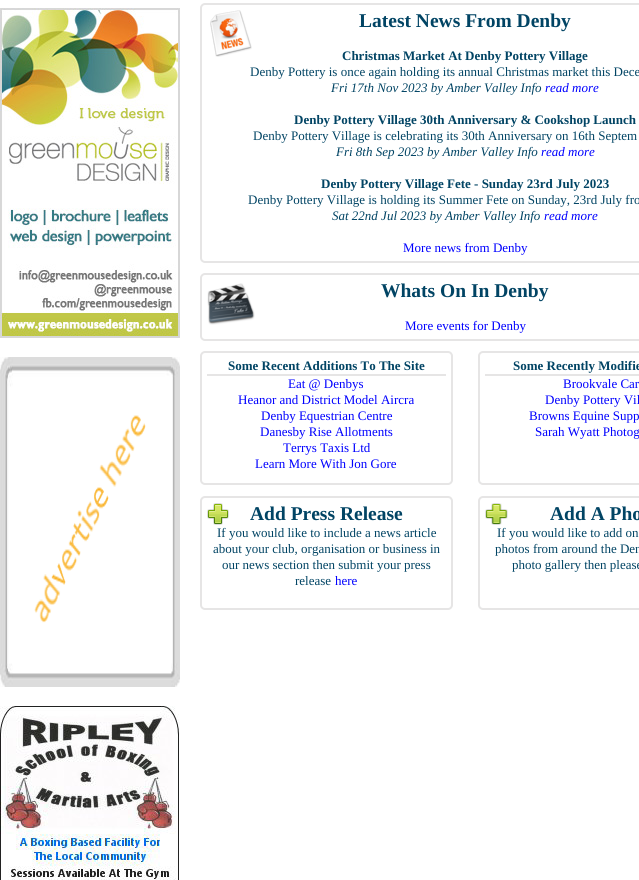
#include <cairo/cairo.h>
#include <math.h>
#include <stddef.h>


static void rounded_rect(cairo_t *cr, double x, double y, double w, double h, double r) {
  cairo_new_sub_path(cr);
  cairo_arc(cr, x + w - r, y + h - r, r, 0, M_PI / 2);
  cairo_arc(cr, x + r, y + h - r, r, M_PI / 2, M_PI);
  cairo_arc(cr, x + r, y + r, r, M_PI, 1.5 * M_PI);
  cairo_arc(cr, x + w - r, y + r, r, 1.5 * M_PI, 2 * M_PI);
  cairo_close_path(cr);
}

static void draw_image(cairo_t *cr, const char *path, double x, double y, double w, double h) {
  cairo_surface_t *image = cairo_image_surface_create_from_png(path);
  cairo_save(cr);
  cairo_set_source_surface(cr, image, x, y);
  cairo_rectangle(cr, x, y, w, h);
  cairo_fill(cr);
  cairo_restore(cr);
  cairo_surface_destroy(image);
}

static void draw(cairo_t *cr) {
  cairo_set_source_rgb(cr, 1, 1, 1);
  cairo_paint(cr);
  draw_image(cr, "images/1.png", 0, 8, 180, 330);
  draw_image(cr, "images/2.png", 0, 357, 180, 330);
  draw_image(cr, "images/3.png", 0, 706, 180, 174);
  rounded_rect(cr, 201, 4, 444, 258, 4);
  cairo_set_source_rgb(cr, 230 / 255.0, 229 / 255.0, 229 / 255.0);
  cairo_stroke(cr);
  draw_image(cr, "images/4.png", 210, 10, 42, 47);
  rounded_rect(cr, 201, 274, 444, 66, 4);
  cairo_stroke(cr);
  draw_image(cr, "images/5.png", 207, 283, 48, 42);
  rounded_rect(cr, 201, 352, 251, 132, 4);
  cairo_stroke(cr);
  cairo_rectangle(cr, 207, 374, 239, 2);
  cairo_fill(cr);
  rounded_rect(cr, 479, 352, 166, 132, 4);
  cairo_stroke(cr);
  cairo_rectangle(cr, 485, 374, 154, 2);
  cairo_fill(cr);
  rounded_rect(cr, 201, 497, 251, 112, 4);
  cairo_stroke(cr);
  draw_image(cr, "images/6.png", 207, 503, 22, 22);
  rounded_rect(cr, 479, 497, 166, 112, 4);
  cairo_stroke(cr);
  draw_image(cr, "images/7.png", 485, 503, 23, 22);
  cairo_select_font_face(cr, "Liberation Serif", CAIRO_FONT_SLANT_NORMAL, CAIRO_FONT_WEIGHT_BOLD);
  cairo_set_font_size(cr, 19.5);
  cairo_set_source_rgb(cr, 1 / 255.0, 68 / 255.0, 100 / 255.0);
  cairo_move_to(cr, 359, 27);
  cairo_show_text(cr, "Latest News From Denby");
  cairo_set_font_size(cr, 13);
  cairo_move_to(cr, 342, 60);
  cairo_show_text(cr, "Christmas Market At Denby Pottery Village");
  cairo_select_font_face(cr, "Liberation Serif", CAIRO_FONT_SLANT_NORMAL, CAIRO_FONT_WEIGHT_NORMAL);
  cairo_move_to(cr, 250, 76);
  cairo_show_text(cr, "Denby Pottery is once again holding its annual Christmas market this Dece");
  cairo_select_font_face(cr, "Liberation Serif", CAIRO_FONT_SLANT_ITALIC, CAIRO_FONT_WEIGHT_NORMAL);
  cairo_move_to(cr, 331, 92);
  cairo_show_text(cr, "Fri 17th Nov 2023 by Amber Valley Info");
  cairo_set_source_rgb(cr, 0, 0, 1);
  cairo_move_to(cr, 545, 92);
  cairo_show_text(cr, "read more");
  cairo_select_font_face(cr, "Liberation Serif", CAIRO_FONT_SLANT_NORMAL, CAIRO_FONT_WEIGHT_BOLD);
  cairo_set_source_rgb(cr, 1 / 255.0, 68 / 255.0, 100 / 255.0);
  cairo_move_to(cr, 294, 124);
  cairo_show_text(cr, "Denby Pottery Village 30th Anniversary & Cookshop Launch");
  cairo_select_font_face(cr, "Liberation Serif", CAIRO_FONT_SLANT_NORMAL, CAIRO_FONT_WEIGHT_NORMAL);
  cairo_move_to(cr, 253, 140);
  cairo_show_text(cr, "Denby Pottery Village is celebrating its 30th Anniversary on 16th Septem");
  cairo_select_font_face(cr, "Liberation Serif", CAIRO_FONT_SLANT_ITALIC, CAIRO_FONT_WEIGHT_NORMAL);
  cairo_move_to(cr, 336, 156);
  cairo_show_text(cr, "Fri 8th Sep 2023 by Amber Valley Info");
  cairo_set_source_rgb(cr, 0, 0, 1);
  cairo_move_to(cr, 541, 156);
  cairo_show_text(cr, "read more");
  cairo_select_font_face(cr, "Liberation Serif", CAIRO_FONT_SLANT_NORMAL, CAIRO_FONT_WEIGHT_BOLD);
  cairo_set_source_rgb(cr, 1 / 255.0, 68 / 255.0, 100 / 255.0);
  cairo_move_to(cr, 321, 188);
  cairo_show_text(cr, "Denby Pottery Village Fete - Sunday 23rd July 2023");
  cairo_select_font_face(cr, "Liberation Serif", CAIRO_FONT_SLANT_NORMAL, CAIRO_FONT_WEIGHT_NORMAL);
  cairo_move_to(cr, 248, 204);
  cairo_show_text(cr, "Denby Pottery Village is holding its Summer Fete on Sunday, 23rd July fro");
  cairo_select_font_face(cr, "Liberation Serif", CAIRO_FONT_SLANT_ITALIC, CAIRO_FONT_WEIGHT_NORMAL);
  cairo_move_to(cr, 332, 220);
  cairo_show_text(cr, "Sat 22nd Jul 2023 by Amber Valley Info");
  cairo_set_source_rgb(cr, 0, 0, 1);
  cairo_move_to(cr, 544, 220);
  cairo_show_text(cr, "read more");
  cairo_select_font_face(cr, "Liberation Serif", CAIRO_FONT_SLANT_NORMAL, CAIRO_FONT_WEIGHT_NORMAL);
  cairo_move_to(cr, 403, 252);
  cairo_show_text(cr, "More news from Denby");
  cairo_select_font_face(cr, "Liberation Serif", CAIRO_FONT_SLANT_NORMAL, CAIRO_FONT_WEIGHT_BOLD);
  cairo_set_font_size(cr, 19.5);
  cairo_set_source_rgb(cr, 1 / 255.0, 68 / 255.0, 100 / 255.0);
  cairo_move_to(cr, 381, 297);
  cairo_show_text(cr, "Whats On In Denby");
  cairo_select_font_face(cr, "Liberation Serif", CAIRO_FONT_SLANT_NORMAL, CAIRO_FONT_WEIGHT_NORMAL);
  cairo_set_font_size(cr, 13);
  cairo_set_source_rgb(cr, 0, 0, 1);
  cairo_move_to(cr, 405, 330);
  cairo_show_text(cr, "More events for Denby");
  cairo_select_font_face(cr, "Liberation Serif", CAIRO_FONT_SLANT_NORMAL, CAIRO_FONT_WEIGHT_BOLD);
  cairo_set_source_rgb(cr, 1 / 255.0, 68 / 255.0, 100 / 255.0);
  cairo_move_to(cr, 228, 370);
  cairo_show_text(cr, "Some Recent Additions To The Site");
  cairo_select_font_face(cr, "Liberation Serif", CAIRO_FONT_SLANT_NORMAL, CAIRO_FONT_WEIGHT_NORMAL);
  cairo_set_source_rgb(cr, 0, 0, 1);
  cairo_move_to(cr, 288, 388);
  cairo_show_text(cr, "Eat @ Denbys");
  cairo_move_to(cr, 238, 404);
  cairo_show_text(cr, "Heanor and District Model Aircra");
  cairo_move_to(cr, 261, 420);
  cairo_show_text(cr, "Denby Equestrian Centre");
  cairo_move_to(cr, 260, 436);
  cairo_show_text(cr, "Danesby Rise Allotments");
  cairo_move_to(cr, 283, 452);
  cairo_show_text(cr, "Terrys Taxis Ltd");
  cairo_move_to(cr, 255, 468);
  cairo_show_text(cr, "Learn More With Jon Gore");
  cairo_select_font_face(cr, "Liberation Serif", CAIRO_FONT_SLANT_NORMAL, CAIRO_FONT_WEIGHT_BOLD);
  cairo_set_source_rgb(cr, 1 / 255.0, 68 / 255.0, 100 / 255.0);
  cairo_move_to(cr, 513, 370);
  cairo_show_text(cr, "Some Recently Modifie");
  cairo_select_font_face(cr, "Liberation Serif", CAIRO_FONT_SLANT_NORMAL, CAIRO_FONT_WEIGHT_NORMAL);
  cairo_set_source_rgb(cr, 0, 0, 1);
  cairo_move_to(cr, 563, 388);
  cairo_show_text(cr, "Brookvale Car");
  cairo_move_to(cr, 545, 404);
  cairo_show_text(cr, "Denby Pottery Vil");
  cairo_move_to(cr, 529, 420);
  cairo_show_text(cr, "Browns Equine Supp");
  cairo_move_to(cr, 535, 436);
  cairo_show_text(cr, "Sarah Wyatt Photog");
  cairo_select_font_face(cr, "Liberation Serif", CAIRO_FONT_SLANT_NORMAL, CAIRO_FONT_WEIGHT_BOLD);
  cairo_set_font_size(cr, 19.5);
  cairo_set_source_rgb(cr, 1 / 255.0, 68 / 255.0, 100 / 255.0);
  cairo_move_to(cr, 250, 520);
  cairo_show_text(cr, "Add Press Release");
  cairo_select_font_face(cr, "Liberation Serif", CAIRO_FONT_SLANT_NORMAL, CAIRO_FONT_WEIGHT_NORMAL);
  cairo_set_font_size(cr, 13);
  cairo_move_to(cr, 217, 537);
  cairo_show_text(cr, "If you would like to include a news article");
  cairo_move_to(cr, 213, 553);
  cairo_show_text(cr, "about your club, organisation or business in");
  cairo_move_to(cr, 222, 569);
  cairo_show_text(cr, "our news section then submit your press");
  cairo_move_to(cr, 295, 585);
  cairo_show_text(cr, "release");
  cairo_set_source_rgb(cr, 0, 0, 1);
  cairo_move_to(cr, 335, 585);
  cairo_show_text(cr, "here");
  cairo_select_font_face(cr, "Liberation Serif", CAIRO_FONT_SLANT_NORMAL, CAIRO_FONT_WEIGHT_BOLD);
  cairo_set_font_size(cr, 19.5);
  cairo_set_source_rgb(cr, 1 / 255.0, 68 / 255.0, 100 / 255.0);
  cairo_move_to(cr, 550, 520);
  cairo_show_text(cr, "Add A Pho");
  cairo_select_font_face(cr, "Liberation Serif", CAIRO_FONT_SLANT_NORMAL, CAIRO_FONT_WEIGHT_NORMAL);
  cairo_set_font_size(cr, 13);
  cairo_move_to(cr, 497, 537);
  cairo_show_text(cr, "If you would like to add on");
  cairo_move_to(cr, 495, 553);
  cairo_show_text(cr, "photos from around the Den");
  cairo_move_to(cr, 512, 569);
  cairo_show_text(cr, "photo gallery then please");
}

int main(void) {
  cairo_surface_t *surface = cairo_image_surface_create(CAIRO_FORMAT_RGB24, 639, 880);
  cairo_t *cr = cairo_create(surface);
  cairo_font_options_t *options = cairo_font_options_create();
  cairo_font_options_set_hint_metrics(options, CAIRO_HINT_METRICS_OFF);
  cairo_font_options_set_hint_style(options, CAIRO_HINT_STYLE_NONE);
  cairo_set_font_options(cr, options);
  cairo_set_miter_limit(cr, 4);
  draw(cr);
  cairo_surface_write_to_png(surface, "out.png");
  cairo_font_options_destroy(options);
  cairo_destroy(cr);
  cairo_surface_destroy(surface);
  return 0;
}
